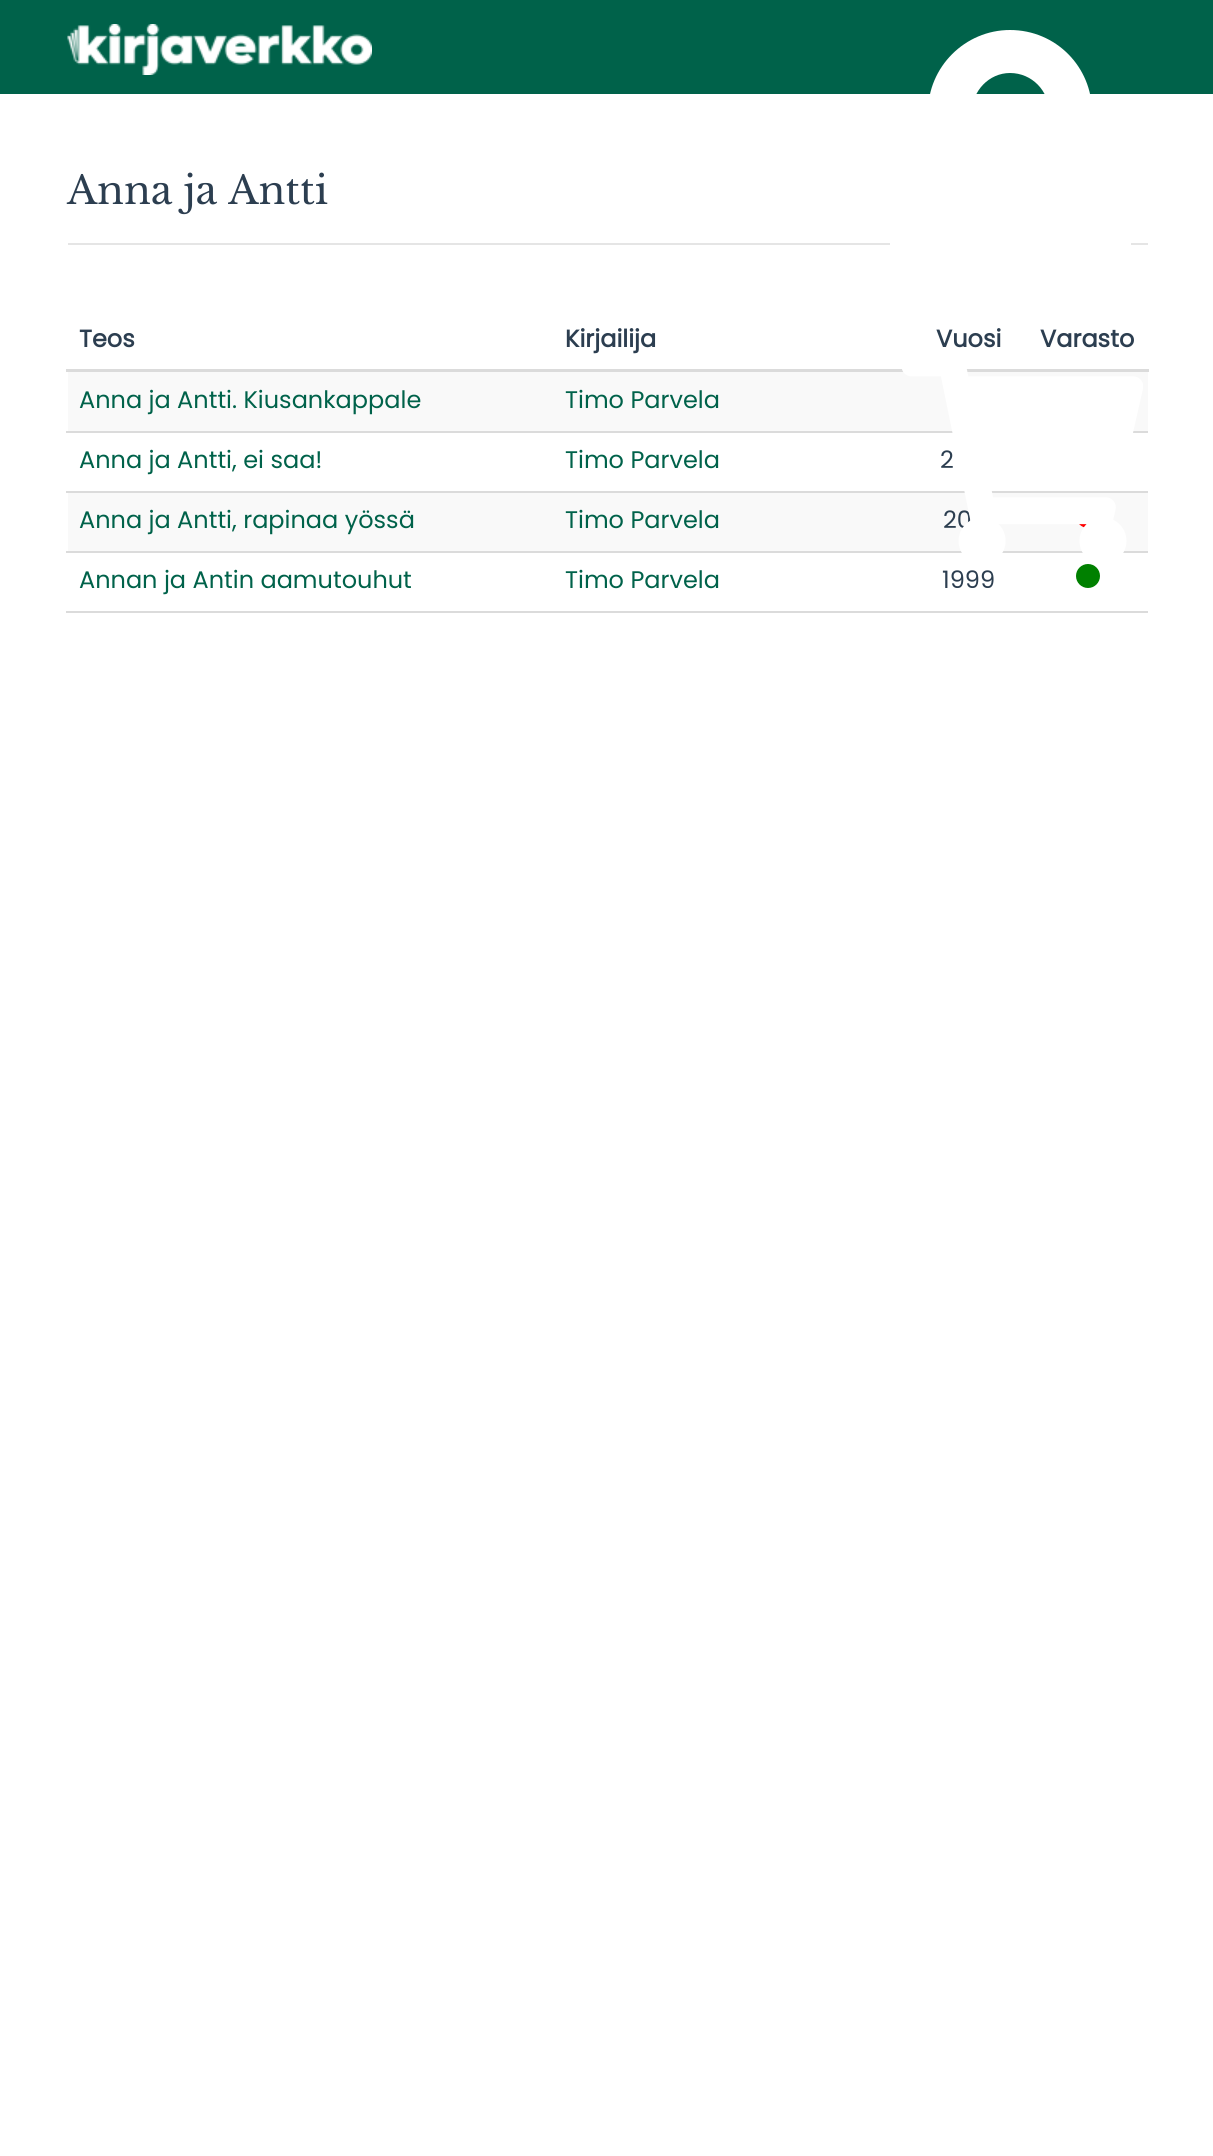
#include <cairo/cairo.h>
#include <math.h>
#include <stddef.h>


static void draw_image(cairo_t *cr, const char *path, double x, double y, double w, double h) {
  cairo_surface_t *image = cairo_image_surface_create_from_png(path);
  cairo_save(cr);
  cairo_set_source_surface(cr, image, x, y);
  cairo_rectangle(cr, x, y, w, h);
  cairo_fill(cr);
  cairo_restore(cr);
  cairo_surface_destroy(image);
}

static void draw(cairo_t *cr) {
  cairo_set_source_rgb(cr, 1, 1, 1);
  cairo_paint(cr);
  cairo_set_source_rgb(cr, 0, 98 / 255.0, 74 / 255.0);
  cairo_rectangle(cr, 0, 0, 1213, 94);
  cairo_fill(cr);
  draw_image(cr, "images/1.png", 67, 24, 305, 51);
  cairo_set_source_rgb(cr, 229 / 255.0, 229 / 255.0, 229 / 255.0);
  cairo_rectangle(cr, 68, 243, 1080, 2);
  cairo_fill(cr);
  cairo_set_source_rgb(cr, 1, 1, 1);
  cairo_new_path(cr);
  cairo_move_to(cr, 1105, 151);
  cairo_line_to(cr, 1092, 151);
  cairo_line_to(cr, 1092, 112);
  cairo_curve_to(cr, 1092, 67, 1056, 30, 1010, 30);
  cairo_curve_to(cr, 965, 30, 928, 67, 928, 112);
  cairo_line_to(cr, 928, 151);
  cairo_line_to(cr, 915, 151);
  cairo_curve_to(cr, 901, 151, 890, 162, 890, 177);
  cairo_line_to(cr, 890, 280);
  cairo_curve_to(cr, 890, 295, 901, 306, 915, 306);
  cairo_line_to(cr, 1105, 306);
  cairo_curve_to(cr, 1120, 306, 1131, 295, 1131, 280);
  cairo_line_to(cr, 1131, 177);
  cairo_curve_to(cr, 1131, 162, 1120, 151, 1105, 151);
  cairo_close_path(cr);
  cairo_move_to(cr, 1049, 151);
  cairo_line_to(cr, 972, 151);
  cairo_line_to(cr, 972, 112);
  cairo_curve_to(cr, 972, 91, 989, 73, 1010, 73);
  cairo_curve_to(cr, 1032, 73, 1049, 91, 1049, 112);
  cairo_close_path(cr);
  cairo_fill(cr);
  cairo_set_source_rgb(cr, 219 / 255.0, 219 / 255.0, 219 / 255.0);
  cairo_rectangle(cr, 66, 369, 845, 3);
  cairo_fill(cr);
  cairo_rectangle(cr, 966, 369, 183, 3);
  cairo_fill(cr);
  cairo_set_source_rgb(cr, 249 / 255.0, 249 / 255.0, 249 / 255.0);
  cairo_rectangle(cr, 68, 372, 1080, 59);
  cairo_fill(cr);
  cairo_set_source_rgb(cr, 219 / 255.0, 219 / 255.0, 219 / 255.0);
  cairo_rectangle(cr, 66, 431, 887, 2);
  cairo_fill(cr);
  cairo_rectangle(cr, 1133, 431, 15, 2);
  cairo_fill(cr);
  cairo_rectangle(cr, 66, 491, 1082, 2);
  cairo_fill(cr);
  cairo_set_source_rgb(cr, 249 / 255.0, 249 / 255.0, 249 / 255.0);
  cairo_rectangle(cr, 68, 493, 1080, 58);
  cairo_fill(cr);
  cairo_set_source_rgb(cr, 219 / 255.0, 219 / 255.0, 219 / 255.0);
  cairo_rectangle(cr, 66, 551, 1082, 2);
  cairo_fill(cr);
  cairo_set_source_rgb(cr, 1, 0, 0);
  cairo_arc(cr, 1088, 516, 12, 0, 2 * M_PI);
  cairo_fill(cr);
  cairo_set_source_rgb(cr, 219 / 255.0, 219 / 255.0, 219 / 255.0);
  cairo_rectangle(cr, 66, 611, 1082, 2);
  cairo_fill(cr);
  cairo_set_source_rgb(cr, 0, 128 / 255.0, 0);
  cairo_arc(cr, 1088, 576, 12, 0, 2 * M_PI);
  cairo_fill(cr);
  cairo_select_font_face(cr, "Libre Baskerville", CAIRO_FONT_SLANT_NORMAL, CAIRO_FONT_WEIGHT_NORMAL);
  cairo_set_font_size(cr, 39);
  cairo_set_source_rgb(cr, 44 / 255.0, 62 / 255.0, 80 / 255.0);
  cairo_move_to(cr, 67, 204);
  cairo_show_text(cr, "Anna ja Antti");
  cairo_select_font_face(cr, "Poppins", CAIRO_FONT_SLANT_NORMAL, CAIRO_FONT_WEIGHT_BOLD);
  cairo_set_font_size(cr, 24);
  cairo_move_to(cr, 79, 347);
  cairo_show_text(cr, "Teos");
  cairo_move_to(cr, 565, 347);
  cairo_show_text(cr, "Kirjailija");
  cairo_move_to(cr, 936, 347);
  cairo_show_text(cr, "Vuosi");
  cairo_move_to(cr, 1040, 347);
  cairo_show_text(cr, "Varasto");
  cairo_select_font_face(cr, "Poppins", CAIRO_FONT_SLANT_NORMAL, CAIRO_FONT_WEIGHT_NORMAL);
  cairo_set_source_rgb(cr, 0, 98 / 255.0, 74 / 255.0);
  cairo_move_to(cr, 79, 408);
  cairo_show_text(cr, "Anna ja Antti. Kiusankappale");
  cairo_move_to(cr, 565, 408);
  cairo_show_text(cr, "Timo Parvela");
  cairo_move_to(cr, 79, 468);
  cairo_show_text(cr, "Anna ja Antti, ei saa!");
  cairo_move_to(cr, 565, 468);
  cairo_show_text(cr, "Timo Parvela");
  cairo_set_source_rgb(cr, 44 / 255.0, 62 / 255.0, 80 / 255.0);
  cairo_move_to(cr, 940, 468);
  cairo_show_text(cr, "2");
  cairo_set_source_rgb(cr, 0, 98 / 255.0, 74 / 255.0);
  cairo_move_to(cr, 79, 528);
  cairo_show_text(cr, "Anna ja Antti, rapinaa yössä");
  cairo_move_to(cr, 565, 528);
  cairo_show_text(cr, "Timo Parvela");
  cairo_set_source_rgb(cr, 44 / 255.0, 62 / 255.0, 80 / 255.0);
  cairo_move_to(cr, 943, 528);
  cairo_show_text(cr, "20");
  draw_image(cr, "images/2.png", 902, 369, 241, 184);
  cairo_set_source_rgb(cr, 0, 98 / 255.0, 74 / 255.0);
  cairo_move_to(cr, 79, 588);
  cairo_show_text(cr, "Annan ja Antin aamutouhut");
  cairo_move_to(cr, 565, 588);
  cairo_show_text(cr, "Timo Parvela");
  cairo_set_source_rgb(cr, 44 / 255.0, 62 / 255.0, 80 / 255.0);
  cairo_move_to(cr, 942, 588);
  cairo_show_text(cr, "1999");
}

int main(void) {
  cairo_surface_t *surface = cairo_image_surface_create(CAIRO_FORMAT_RGB24, 1213, 2156);
  cairo_t *cr = cairo_create(surface);
  cairo_font_options_t *options = cairo_font_options_create();
  cairo_font_options_set_hint_metrics(options, CAIRO_HINT_METRICS_OFF);
  cairo_font_options_set_hint_style(options, CAIRO_HINT_STYLE_NONE);
  cairo_set_font_options(cr, options);
  cairo_set_miter_limit(cr, 4);
  draw(cr);
  cairo_surface_write_to_png(surface, "out.png");
  cairo_font_options_destroy(options);
  cairo_destroy(cr);
  cairo_surface_destroy(surface);
  return 0;
}
